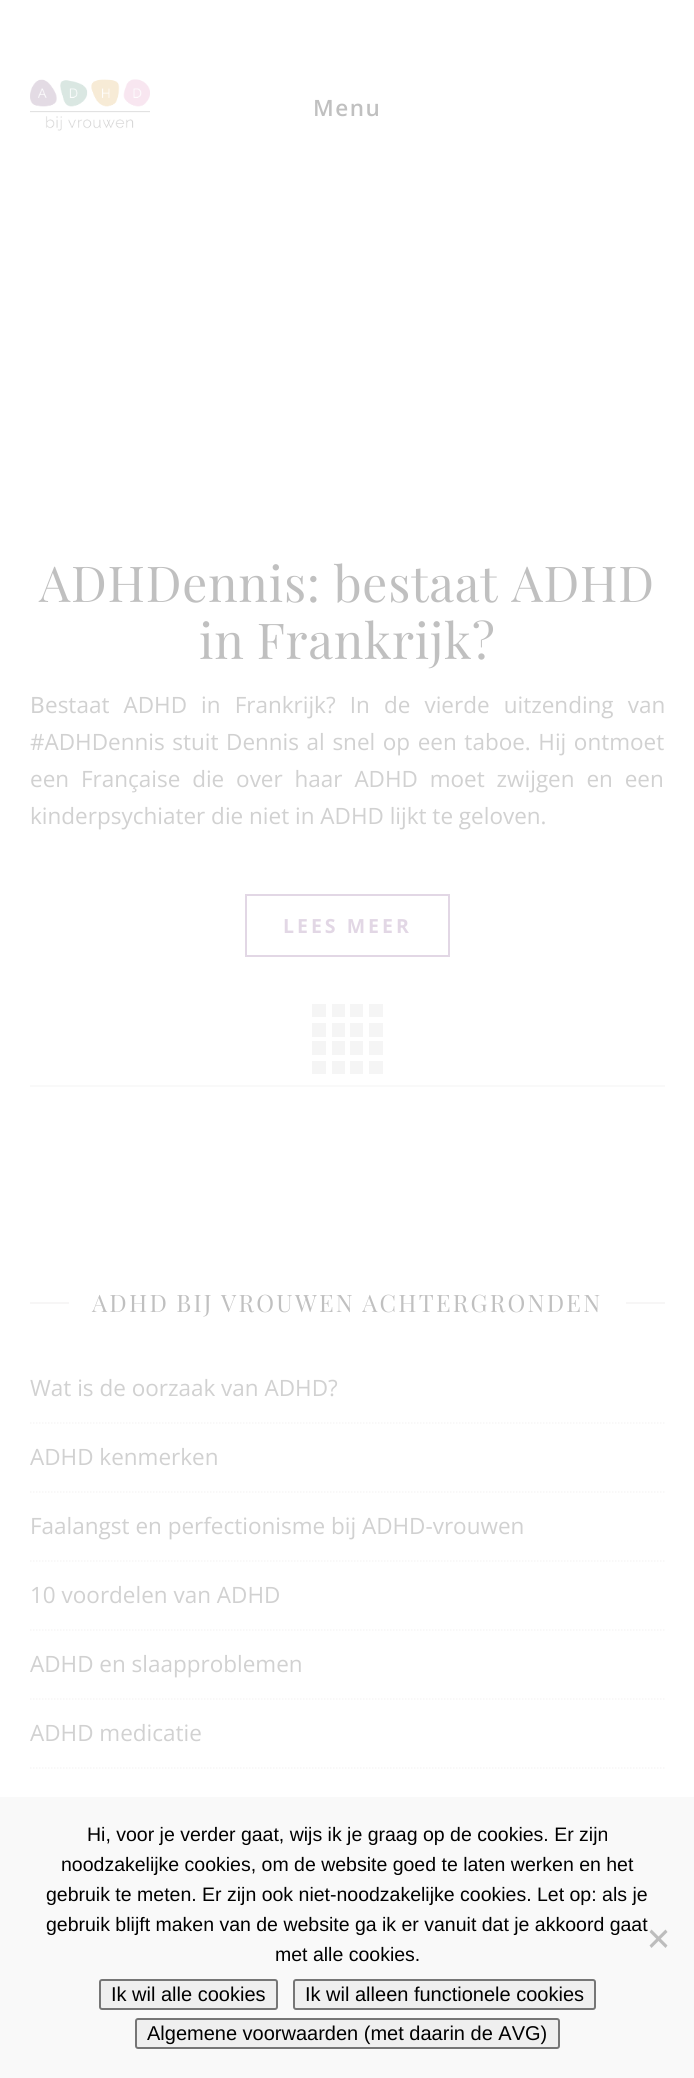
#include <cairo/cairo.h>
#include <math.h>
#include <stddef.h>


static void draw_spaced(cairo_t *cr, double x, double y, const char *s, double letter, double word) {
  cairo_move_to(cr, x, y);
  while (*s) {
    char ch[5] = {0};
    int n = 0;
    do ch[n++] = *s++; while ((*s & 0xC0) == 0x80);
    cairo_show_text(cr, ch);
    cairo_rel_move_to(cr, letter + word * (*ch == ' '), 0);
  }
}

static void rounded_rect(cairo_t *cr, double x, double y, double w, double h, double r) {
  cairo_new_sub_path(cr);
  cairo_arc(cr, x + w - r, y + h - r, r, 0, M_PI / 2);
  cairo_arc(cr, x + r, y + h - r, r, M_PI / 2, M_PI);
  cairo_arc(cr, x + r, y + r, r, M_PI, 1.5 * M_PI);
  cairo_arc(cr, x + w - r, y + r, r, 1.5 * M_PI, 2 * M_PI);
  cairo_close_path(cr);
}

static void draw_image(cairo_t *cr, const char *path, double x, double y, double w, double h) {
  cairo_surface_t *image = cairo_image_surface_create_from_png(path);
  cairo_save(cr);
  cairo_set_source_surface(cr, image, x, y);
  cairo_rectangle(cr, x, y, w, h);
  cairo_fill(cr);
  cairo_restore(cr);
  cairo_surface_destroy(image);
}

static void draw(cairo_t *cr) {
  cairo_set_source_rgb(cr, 1, 1, 1);
  cairo_paint(cr);
  draw_image(cr, "images/1.png", 30, 79, 120, 52);
  cairo_rectangle(cr, 246, 895, 203, 61);
  cairo_set_source_rgb(cr, 226 / 255.0, 215 / 255.0, 229 / 255.0);
  cairo_stroke(cr);
  cairo_set_source_rgb(cr, 249 / 255.0, 249 / 255.0, 249 / 255.0);
  cairo_rectangle(cr, 30, 1085, 635, 2);
  cairo_fill(cr);
  cairo_set_source_rgb(cr, 247 / 255.0, 246 / 255.0, 246 / 255.0);
  cairo_rectangle(cr, 30, 1302, 39, 2);
  cairo_fill(cr);
  cairo_rectangle(cr, 626, 1302, 39, 2);
  cairo_fill(cr);
  cairo_new_path(cr);
  cairo_move_to(cr, 30, 1423);
  cairo_line_to(cr, 664.5, 1423);
  cairo_set_line_width(cr, 1.5);
  cairo_set_dash(cr, (double[]){1.5, 1.5}, 2, 0);
  cairo_stroke(cr);
  cairo_new_path(cr);
  cairo_move_to(cr, 30, 1492);
  cairo_line_to(cr, 664.5, 1492);
  cairo_stroke(cr);
  cairo_new_path(cr);
  cairo_move_to(cr, 30, 1561);
  cairo_line_to(cr, 664.5, 1561);
  cairo_stroke(cr);
  cairo_new_path(cr);
  cairo_move_to(cr, 30, 1630);
  cairo_line_to(cr, 664.5, 1630);
  cairo_stroke(cr);
  cairo_new_path(cr);
  cairo_move_to(cr, 30, 1699);
  cairo_line_to(cr, 664.5, 1699);
  cairo_stroke(cr);
  cairo_new_path(cr);
  cairo_move_to(cr, 30, 1768);
  cairo_line_to(cr, 664.5, 1768);
  cairo_stroke(cr);
  cairo_set_source_rgb(cr, 245 / 255.0, 245 / 255.0, 245 / 255.0);
  cairo_rectangle(cr, 312, 1004, 14, 13);
  cairo_fill(cr);
  cairo_rectangle(cr, 332, 1004, 13, 13);
  cairo_fill(cr);
  cairo_rectangle(cr, 350, 1004, 13, 13);
  cairo_fill(cr);
  cairo_rectangle(cr, 369, 1004, 14, 13);
  cairo_fill(cr);
  cairo_rectangle(cr, 312, 1023, 14, 14);
  cairo_fill(cr);
  cairo_rectangle(cr, 332, 1023, 13, 14);
  cairo_fill(cr);
  cairo_rectangle(cr, 350, 1023, 13, 14);
  cairo_fill(cr);
  cairo_rectangle(cr, 369, 1023, 14, 14);
  cairo_fill(cr);
  cairo_rectangle(cr, 312, 1041, 14, 14);
  cairo_fill(cr);
  cairo_rectangle(cr, 332, 1041, 13, 14);
  cairo_fill(cr);
  cairo_rectangle(cr, 350, 1041, 13, 14);
  cairo_fill(cr);
  cairo_rectangle(cr, 369, 1041, 14, 14);
  cairo_fill(cr);
  cairo_rectangle(cr, 312, 1061, 14, 13);
  cairo_fill(cr);
  cairo_rectangle(cr, 332, 1061, 13, 13);
  cairo_fill(cr);
  cairo_rectangle(cr, 350, 1061, 13, 13);
  cairo_fill(cr);
  cairo_rectangle(cr, 369, 1061, 14, 13);
  cairo_fill(cr);
  cairo_set_source_rgb(cr, 249 / 255.0, 249 / 255.0, 249 / 255.0);
  cairo_rectangle(cr, 0, 1797, 694, 281);
  cairo_fill(cr);
  cairo_set_source_rgb(cr, 189 / 255.0, 189 / 255.0, 189 / 255.0);
  cairo_new_path(cr);
  cairo_move_to(cr, 665.5, 1929.5);
  cairo_line_to(cr, 667.5, 1932);
  cairo_line_to(cr, 651.5, 1948);
  cairo_line_to(cr, 649.5, 1945.5);
  cairo_close_path(cr);
  cairo_fill(cr);
  cairo_new_path(cr);
  cairo_move_to(cr, 649.5, 1932);
  cairo_line_to(cr, 651.5, 1929.5);
  cairo_line_to(cr, 667.5, 1945.5);
  cairo_line_to(cr, 665.5, 1948);
  cairo_close_path(cr);
  cairo_fill(cr);
  cairo_set_source_rgb(cr, 239 / 255.0, 239 / 255.0, 239 / 255.0);
  rounded_rect(cr, 100, 1980, 177, 29, 2);
  cairo_fill_preserve(cr);
  cairo_set_source_rgb(cr, 118 / 255.0, 118 / 255.0, 118 / 255.0);
  cairo_set_line_width(cr, 2);
  cairo_set_dash(cr, NULL, 0, 0);
  cairo_stroke(cr);
  cairo_set_source_rgb(cr, 239 / 255.0, 239 / 255.0, 239 / 255.0);
  rounded_rect(cr, 294, 1980, 301, 29, 2);
  cairo_fill_preserve(cr);
  cairo_set_source_rgb(cr, 118 / 255.0, 118 / 255.0, 118 / 255.0);
  cairo_stroke(cr);
  cairo_set_source_rgb(cr, 239 / 255.0, 239 / 255.0, 239 / 255.0);
  rounded_rect(cr, 136, 2019, 423, 29, 2);
  cairo_fill_preserve(cr);
  cairo_set_source_rgb(cr, 118 / 255.0, 118 / 255.0, 118 / 255.0);
  cairo_stroke(cr);
  cairo_select_font_face(cr, "Open Sans SemiBold", CAIRO_FONT_SLANT_NORMAL, CAIRO_FONT_WEIGHT_NORMAL);
  cairo_set_font_size(cr, 22.5);
  cairo_set_source_rgb(cr, 192 / 255.0, 192 / 255.0, 192 / 255.0);
  draw_spaced(cr, 313, 116, "Menu", 1.5, 0);
  cairo_select_font_face(cr, "Playfair Display", CAIRO_FONT_SLANT_NORMAL, CAIRO_FONT_WEIGHT_NORMAL);
  cairo_set_font_size(cr, 49.5);
  draw_spaced(cr, 39, 602, "ADHDennis: bestaat ADHD", 0.75, 0);
  draw_spaced(cr, 199, 659, "in Frankrijk?", 0.75, -1);
  cairo_select_font_face(cr, "Noto Sans", CAIRO_FONT_SLANT_NORMAL, CAIRO_FONT_WEIGHT_NORMAL);
  cairo_set_font_size(cr, 22.5);
  cairo_set_source_rgb(cr, 209 / 255.0, 209 / 255.0, 209 / 255.0);
  cairo_move_to(cr, 30, 713);
  cairo_show_text(cr, "B");
  cairo_select_font_face(cr, "Open Sans", CAIRO_FONT_SLANT_NORMAL, CAIRO_FONT_WEIGHT_NORMAL);
  draw_spaced(cr, 45, 713, "estaat ADHD in Frankrijk? In de vierde uitzending van", 0, 8.25);
  draw_spaced(cr, 30, 750, "#ADHDennis stuit Dennis al snel op een taboe. Hij ontmoet", 0, 1.75);
  draw_spaced(cr, 30, 787, "een Française die over haar ADHD moet zwijgen en een", 0, 6);
  cairo_move_to(cr, 30, 824);
  cairo_show_text(cr, "kinderpsychiater die niet in ADHD lijkt te geloven.");
  cairo_select_font_face(cr, "Open Sans", CAIRO_FONT_SLANT_NORMAL, CAIRO_FONT_WEIGHT_BOLD);
  cairo_set_font_size(cr, 19.5);
  cairo_set_source_rgb(cr, 226 / 255.0, 215 / 255.0, 229 / 255.0);
  draw_spaced(cr, 283, 933, "LEES MEER", 3, 0);
  cairo_select_font_face(cr, "Playfair Display", CAIRO_FONT_SLANT_NORMAL, CAIRO_FONT_WEIGHT_NORMAL);
  cairo_set_font_size(cr, 24);
  cairo_set_source_rgb(cr, 192 / 255.0, 192 / 255.0, 192 / 255.0);
  draw_spaced(cr, 92, 1312, "ADHD BIJ VROUWEN ACHTERGRONDEN", 2.25, -1);
  cairo_select_font_face(cr, "Open Sans", CAIRO_FONT_SLANT_NORMAL, CAIRO_FONT_WEIGHT_NORMAL);
  cairo_set_font_size(cr, 22.5);
  cairo_set_source_rgb(cr, 209 / 255.0, 209 / 255.0, 209 / 255.0);
  cairo_move_to(cr, 30, 1396);
  cairo_show_text(cr, "Wat is de oorzaak van ADHD?");
  cairo_move_to(cr, 30, 1465);
  cairo_show_text(cr, "ADHD kenmerken");
  cairo_move_to(cr, 30, 1534);
  cairo_show_text(cr, "Faalangst en perfectionisme bij ADHD-vrouwen");
  cairo_move_to(cr, 30, 1603);
  cairo_show_text(cr, "10 voordelen van ADHD");
  cairo_move_to(cr, 30, 1672);
  cairo_show_text(cr, "ADHD en slaapproblemen");
  cairo_move_to(cr, 30, 1741);
  cairo_show_text(cr, "ADHD medicatie");
  cairo_select_font_face(cr, "Liberation Sans", CAIRO_FONT_SLANT_NORMAL, CAIRO_FONT_WEIGHT_NORMAL);
  cairo_set_font_size(cr, 19.5);
  cairo_set_source_rgb(cr, 0, 0, 0);
  cairo_move_to(cr, 87, 1841);
  cairo_show_text(cr, "Hi, voor je verder gaat, wijs ik je graag op de cookies. Er zijn");
  cairo_move_to(cr, 61, 1871);
  cairo_show_text(cr, "noodzakelijke cookies, om de website goed te laten werken en het");
  cairo_move_to(cr, 46, 1901);
  cairo_show_text(cr, "gebruik te meten. Er zijn ook niet-noodzakelijke cookies. Let op: als je");
  cairo_move_to(cr, 46, 1931);
  cairo_show_text(cr, "gebruik blijft maken van de website ga ik er vanuit dat je akkoord gaat");
  cairo_move_to(cr, 275, 1961);
  cairo_show_text(cr, "met alle cookies.");
  cairo_set_font_size(cr, 20);
  cairo_move_to(cr, 111, 2001);
  cairo_show_text(cr, "Ik wil alle cookies");
  cairo_move_to(cr, 305, 2001);
  cairo_show_text(cr, "Ik wil alleen functionele cookies");
  cairo_move_to(cr, 147, 2040);
  cairo_show_text(cr, "Algemene voorwaarden (met daarin de AVG)");
}

int main(void) {
  cairo_surface_t *surface = cairo_image_surface_create(CAIRO_FORMAT_RGB24, 694, 2078);
  cairo_t *cr = cairo_create(surface);
  cairo_font_options_t *options = cairo_font_options_create();
  cairo_font_options_set_hint_metrics(options, CAIRO_HINT_METRICS_OFF);
  cairo_font_options_set_hint_style(options, CAIRO_HINT_STYLE_NONE);
  cairo_set_font_options(cr, options);
  cairo_set_miter_limit(cr, 4);
  draw(cr);
  cairo_surface_write_to_png(surface, "out.png");
  cairo_font_options_destroy(options);
  cairo_destroy(cr);
  cairo_surface_destroy(surface);
  return 0;
}
